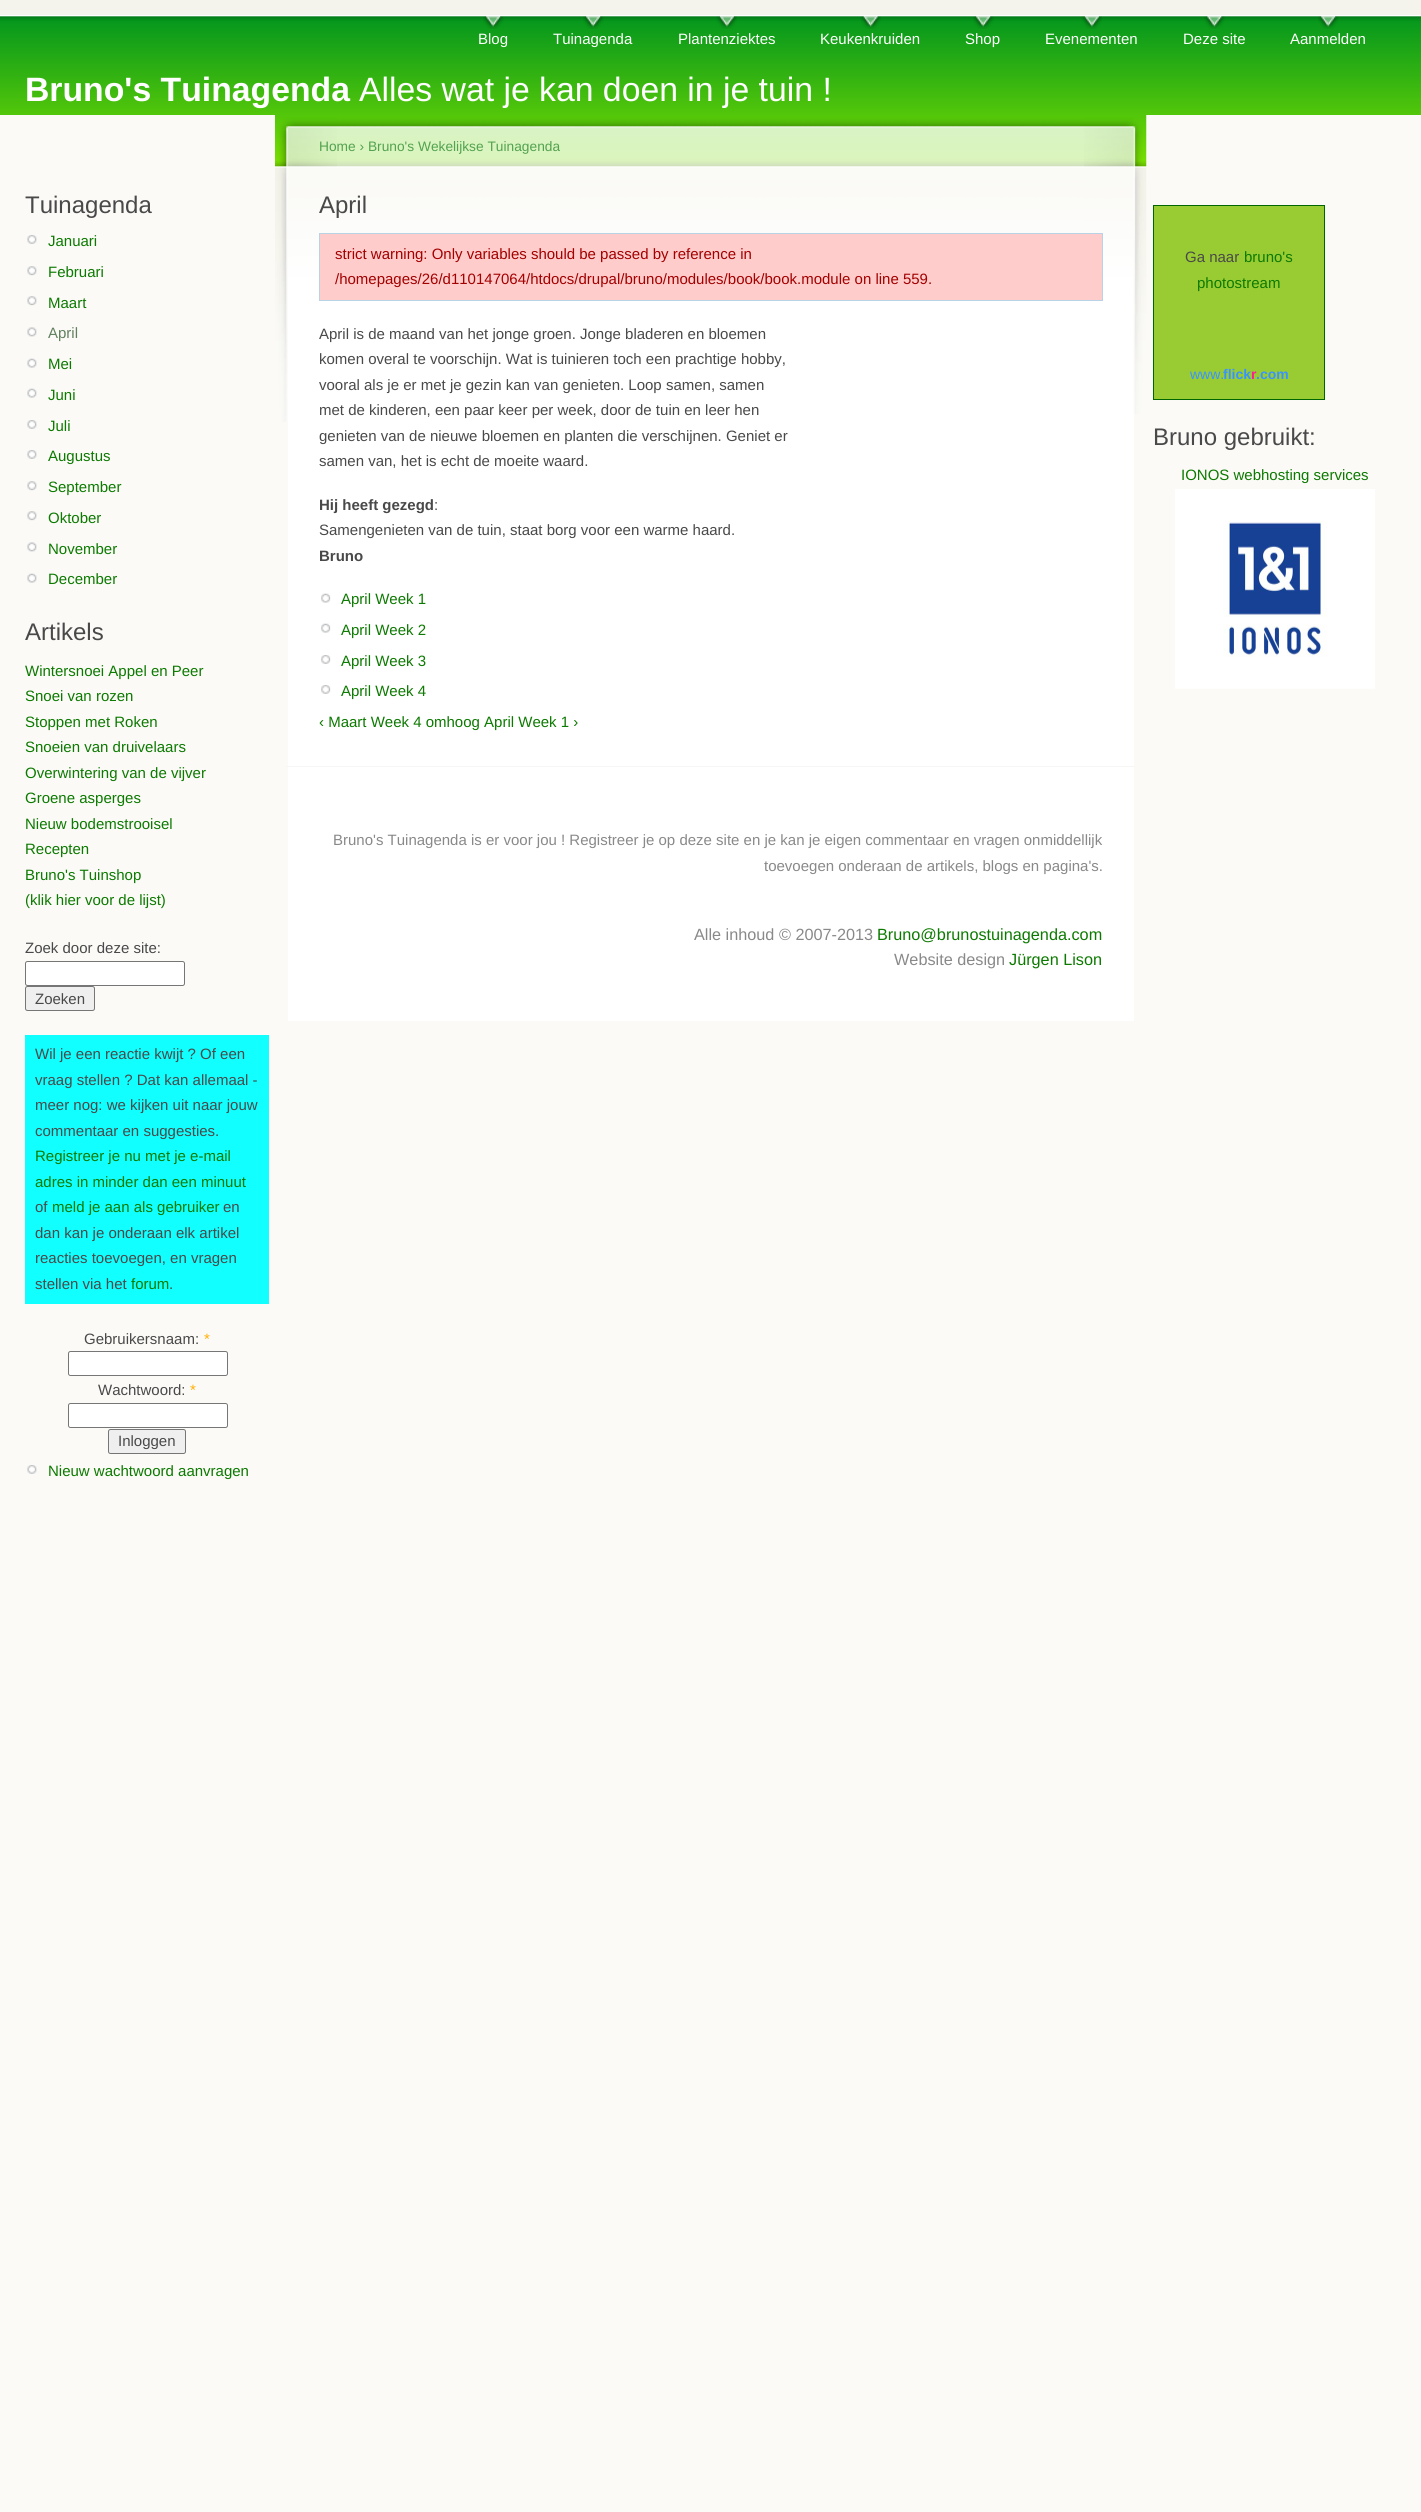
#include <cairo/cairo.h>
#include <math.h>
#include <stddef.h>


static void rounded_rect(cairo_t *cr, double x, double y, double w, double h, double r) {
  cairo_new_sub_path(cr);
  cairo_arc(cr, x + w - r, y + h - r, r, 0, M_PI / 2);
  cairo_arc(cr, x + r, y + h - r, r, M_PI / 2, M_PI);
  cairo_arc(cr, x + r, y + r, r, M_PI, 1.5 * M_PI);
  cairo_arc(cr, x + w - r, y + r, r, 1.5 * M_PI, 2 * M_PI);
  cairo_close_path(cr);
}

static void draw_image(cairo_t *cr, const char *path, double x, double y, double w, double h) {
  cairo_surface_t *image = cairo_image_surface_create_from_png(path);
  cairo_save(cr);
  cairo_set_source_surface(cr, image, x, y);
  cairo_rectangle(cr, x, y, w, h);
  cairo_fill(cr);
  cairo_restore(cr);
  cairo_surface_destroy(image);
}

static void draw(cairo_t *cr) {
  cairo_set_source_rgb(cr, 251 / 255.0, 250 / 255.0, 247 / 255.0);
  cairo_paint(cr);
  cairo_set_source_rgb(cr, 245 / 255.0, 244 / 255.0, 236 / 255.0);
  cairo_rectangle(cr, 0, 0, 1421, 15);
  cairo_fill(cr);
  draw_image(cr, "images/1.png", 0, 15, 1421, 100);
  draw_image(cr, "images/2.png", 483, 16, 21, 13);
  draw_image(cr, "images/3.png", 583, 16, 21, 13);
  draw_image(cr, "images/4.png", 716, 16, 21, 13);
  draw_image(cr, "images/5.png", 860, 16, 21, 13);
  draw_image(cr, "images/3.png", 973, 16, 21, 13);
  draw_image(cr, "images/4.png", 1081, 16, 21, 13);
  draw_image(cr, "images/6.png", 1204, 16, 21, 13);
  draw_image(cr, "images/3.png", 1318, 16, 21, 13);
  draw_image(cr, "images/7.png", 27, 235, 10, 9);
  draw_image(cr, "images/8.png", 27, 266, 10, 10);
  draw_image(cr, "images/8.png", 27, 296, 10, 10);
  draw_image(cr, "images/9.png", 27, 327, 10, 10);
  draw_image(cr, "images/10.png", 27, 358, 10, 10);
  draw_image(cr, "images/10.png", 27, 388, 10, 10);
  draw_image(cr, "images/7.png", 27, 420, 10, 9);
  draw_image(cr, "images/7.png", 27, 450, 10, 9);
  draw_image(cr, "images/8.png", 27, 481, 10, 10);
  draw_image(cr, "images/8.png", 27, 511, 10, 10);
  draw_image(cr, "images/9.png", 27, 542, 10, 10);
  draw_image(cr, "images/10.png", 27, 573, 10, 10);
  cairo_set_source_rgb(cr, 1, 1, 1);
  rounded_rect(cr, 25.5, 961.5, 159, 24, 2);
  cairo_fill_preserve(cr);
  cairo_set_source_rgb(cr, 118 / 255.0, 118 / 255.0, 118 / 255.0);
  cairo_set_line_width(cr, 1);
  cairo_stroke(cr);
  cairo_set_source_rgb(cr, 239 / 255.0, 239 / 255.0, 239 / 255.0);
  rounded_rect(cr, 25.5, 986.5, 69, 24, 2);
  cairo_fill_preserve(cr);
  cairo_set_source_rgb(cr, 118 / 255.0, 118 / 255.0, 118 / 255.0);
  cairo_stroke(cr);
  cairo_set_source_rgb(cr, 17 / 255.0, 1, 1);
  cairo_rectangle(cr, 25, 1035, 244, 269);
  cairo_fill(cr);
  cairo_set_source_rgb(cr, 1, 1, 1);
  rounded_rect(cr, 68.5, 1351.5, 159, 24, 2);
  cairo_fill_preserve(cr);
  cairo_set_source_rgb(cr, 118 / 255.0, 118 / 255.0, 118 / 255.0);
  cairo_stroke(cr);
  cairo_set_source_rgb(cr, 1, 1, 1);
  rounded_rect(cr, 68.5, 1403.5, 159, 24, 2);
  cairo_fill_preserve(cr);
  cairo_set_source_rgb(cr, 118 / 255.0, 118 / 255.0, 118 / 255.0);
  cairo_stroke(cr);
  cairo_set_source_rgb(cr, 239 / 255.0, 239 / 255.0, 239 / 255.0);
  rounded_rect(cr, 108.5, 1429.5, 77, 24, 2);
  cairo_fill_preserve(cr);
  cairo_set_source_rgb(cr, 118 / 255.0, 118 / 255.0, 118 / 255.0);
  cairo_stroke(cr);
  draw_image(cr, "images/7.png", 27, 1465, 10, 9);
  cairo_set_source_rgb(cr, 1, 1, 1);
  cairo_rectangle(cr, 288, 365, 846, 656);
  cairo_fill(cr);
  draw_image(cr, "images/11.png", 337, 115, 747, 250);
  draw_image(cr, "images/12.png", 1084, 115, 63, 299);
  draw_image(cr, "images/13.png", 275, 115, 62, 307);
  cairo_set_source_rgb(cr, 1, 204 / 255.0, 204 / 255.0);
  cairo_rectangle(cr, 319.5, 233.5, 783, 67);
  cairo_fill_preserve(cr);
  cairo_set_source_rgb(cr, 184 / 255.0, 211 / 255.0, 229 / 255.0);
  cairo_stroke(cr);
  cairo_set_source_rgb(cr, 246 / 255.0, 246 / 255.0, 245 / 255.0);
  cairo_rectangle(cr, 286, 766, 849, 1);
  cairo_fill(cr);
  draw_image(cr, "images/14.png", 321, 593, 10, 10);
  draw_image(cr, "images/14.png", 321, 623, 10, 10);
  draw_image(cr, "images/15.png", 321, 655, 10, 9);
  draw_image(cr, "images/15.png", 321, 685, 10, 9);
  cairo_set_source_rgb(cr, 153 / 255.0, 204 / 255.0, 51 / 255.0);
  cairo_rectangle(cr, 1153.5, 205.5, 171, 194);
  cairo_fill_preserve(cr);
  cairo_set_source_rgb(cr, 0, 102 / 255.0, 0);
  cairo_stroke(cr);
  draw_image(cr, "images/16.png", 1175, 489, 200, 200);
  cairo_select_font_face(cr, "Liberation Sans", CAIRO_FONT_SLANT_NORMAL, CAIRO_FONT_WEIGHT_NORMAL);
  cairo_set_font_size(cr, 15);
  cairo_set_source_rgb(cr, 1, 1, 1);
  cairo_move_to(cr, 478, 44);
  cairo_show_text(cr, "Blog");
  cairo_move_to(cr, 553, 44);
  cairo_show_text(cr, "Tuinagenda");
  cairo_move_to(cr, 678, 44);
  cairo_show_text(cr, "Plantenziektes");
  cairo_move_to(cr, 820, 44);
  cairo_show_text(cr, "Keukenkruiden");
  cairo_move_to(cr, 965, 44);
  cairo_show_text(cr, "Shop");
  cairo_move_to(cr, 1045, 44);
  cairo_show_text(cr, "Evenementen");
  cairo_move_to(cr, 1183, 44);
  cairo_show_text(cr, "Deze site");
  cairo_move_to(cr, 1290, 44);
  cairo_show_text(cr, "Aanmelden");
  cairo_select_font_face(cr, "Liberation Sans", CAIRO_FONT_SLANT_NORMAL, CAIRO_FONT_WEIGHT_BOLD);
  cairo_set_font_size(cr, 33.75);
  cairo_move_to(cr, 25, 101);
  cairo_show_text(cr, "Bruno's Tuinagenda");
  cairo_select_font_face(cr, "Liberation Sans", CAIRO_FONT_SLANT_NORMAL, CAIRO_FONT_WEIGHT_NORMAL);
  cairo_move_to(cr, 359, 101);
  cairo_show_text(cr, "Alles wat je kan doen in je tuin !");
  cairo_set_font_size(cr, 24);
  cairo_set_source_rgb(cr, 73 / 255.0, 73 / 255.0, 73 / 255.0);
  cairo_move_to(cr, 25, 213);
  cairo_show_text(cr, "Tuinagenda");
  cairo_set_font_size(cr, 15);
  cairo_set_source_rgb(cr, 12 / 255.0, 122 / 255.0, 0);
  cairo_move_to(cr, 48, 246);
  cairo_show_text(cr, "Januari");
  cairo_move_to(cr, 48, 277);
  cairo_show_text(cr, "Februari");
  cairo_move_to(cr, 48, 308);
  cairo_show_text(cr, "Maart");
  cairo_set_source_rgb(cr, 97 / 255.0, 129 / 255.0, 94 / 255.0);
  cairo_move_to(cr, 48, 338);
  cairo_show_text(cr, "April");
  cairo_set_source_rgb(cr, 12 / 255.0, 122 / 255.0, 0);
  cairo_move_to(cr, 48, 369);
  cairo_show_text(cr, "Mei");
  cairo_move_to(cr, 48, 400);
  cairo_show_text(cr, "Juni");
  cairo_move_to(cr, 48, 431);
  cairo_show_text(cr, "Juli");
  cairo_move_to(cr, 48, 461);
  cairo_show_text(cr, "Augustus");
  cairo_move_to(cr, 48, 492);
  cairo_show_text(cr, "September");
  cairo_move_to(cr, 48, 523);
  cairo_show_text(cr, "Oktober");
  cairo_move_to(cr, 48, 554);
  cairo_show_text(cr, "November");
  cairo_move_to(cr, 48, 584);
  cairo_show_text(cr, "December");
  cairo_set_font_size(cr, 24);
  cairo_set_source_rgb(cr, 73 / 255.0, 73 / 255.0, 73 / 255.0);
  cairo_move_to(cr, 25, 640);
  cairo_show_text(cr, "Artikels");
  cairo_set_font_size(cr, 15);
  cairo_set_source_rgb(cr, 12 / 255.0, 122 / 255.0, 0);
  cairo_move_to(cr, 25, 676);
  cairo_show_text(cr, "Wintersnoei Appel en Peer");
  cairo_move_to(cr, 25, 701);
  cairo_show_text(cr, "Snoei van rozen");
  cairo_move_to(cr, 25, 727);
  cairo_show_text(cr, "Stoppen met Roken");
  cairo_move_to(cr, 25, 752);
  cairo_show_text(cr, "Snoeien van druivelaars");
  cairo_move_to(cr, 25, 778);
  cairo_show_text(cr, "Overwintering van de vijver");
  cairo_move_to(cr, 25, 803);
  cairo_show_text(cr, "Groene asperges");
  cairo_move_to(cr, 25, 829);
  cairo_show_text(cr, "Nieuw bodemstrooisel");
  cairo_move_to(cr, 25, 854);
  cairo_show_text(cr, "Recepten");
  cairo_move_to(cr, 25, 880);
  cairo_show_text(cr, "Bruno's Tuinshop");
  cairo_move_to(cr, 25, 905);
  cairo_show_text(cr, "(klik hier voor de lijst)");
  cairo_set_source_rgb(cr, 73 / 255.0, 73 / 255.0, 73 / 255.0);
  cairo_move_to(cr, 25, 953);
  cairo_show_text(cr, "Zoek door deze site:");
  cairo_move_to(cr, 35, 1004);
  cairo_show_text(cr, "Zoeken");
  cairo_move_to(cr, 35, 1059);
  cairo_show_text(cr, "Wil je een reactie kwijt ? Of een");
  cairo_move_to(cr, 35, 1085);
  cairo_show_text(cr, "vraag stellen ? Dat kan allemaal -");
  cairo_move_to(cr, 35, 1110);
  cairo_show_text(cr, "meer nog: we kijken uit naar jouw");
  cairo_move_to(cr, 35, 1136);
  cairo_show_text(cr, "commentaar en suggesties.");
  cairo_set_source_rgb(cr, 12 / 255.0, 122 / 255.0, 0);
  cairo_move_to(cr, 35, 1161);
  cairo_show_text(cr, "Registreer je nu met je e-mail");
  cairo_move_to(cr, 35, 1187);
  cairo_show_text(cr, "adres in minder dan een minuut");
  cairo_set_source_rgb(cr, 73 / 255.0, 73 / 255.0, 73 / 255.0);
  cairo_move_to(cr, 35, 1212);
  cairo_show_text(cr, "of");
  cairo_set_source_rgb(cr, 12 / 255.0, 122 / 255.0, 0);
  cairo_move_to(cr, 52, 1212);
  cairo_show_text(cr, "meld je aan als gebruiker");
  cairo_set_source_rgb(cr, 73 / 255.0, 73 / 255.0, 73 / 255.0);
  cairo_move_to(cr, 223, 1212);
  cairo_show_text(cr, "en");
  cairo_move_to(cr, 35, 1238);
  cairo_show_text(cr, "dan kan je onderaan elk artikel");
  cairo_move_to(cr, 35, 1263);
  cairo_show_text(cr, "reacties toevoegen, en vragen");
  cairo_move_to(cr, 35, 1289);
  cairo_show_text(cr, "stellen via het");
  cairo_set_source_rgb(cr, 12 / 255.0, 122 / 255.0, 0);
  cairo_move_to(cr, 131, 1289);
  cairo_show_text(cr, "forum");
  cairo_set_source_rgb(cr, 73 / 255.0, 73 / 255.0, 73 / 255.0);
  cairo_move_to(cr, 169, 1289);
  cairo_show_text(cr, ".");
  cairo_move_to(cr, 84, 1344);
  cairo_show_text(cr, "Gebruikersnaam:");
  cairo_set_source_rgb(cr, 1, 174 / 255.0, 0);
  cairo_move_to(cr, 204, 1344);
  cairo_show_text(cr, "*");
  cairo_set_source_rgb(cr, 73 / 255.0, 73 / 255.0, 73 / 255.0);
  cairo_move_to(cr, 98, 1395);
  cairo_show_text(cr, "Wachtwoord:");
  cairo_set_source_rgb(cr, 1, 174 / 255.0, 0);
  cairo_move_to(cr, 190, 1395);
  cairo_show_text(cr, "*");
  cairo_set_source_rgb(cr, 73 / 255.0, 73 / 255.0, 73 / 255.0);
  cairo_move_to(cr, 118, 1446);
  cairo_show_text(cr, "Inloggen");
  cairo_set_source_rgb(cr, 12 / 255.0, 122 / 255.0, 0);
  cairo_move_to(cr, 48, 1476);
  cairo_show_text(cr, "Nieuw wachtwoord aanvragen");
  cairo_set_font_size(cr, 13.75);
  cairo_set_source_rgb(cr, 82 / 255.0, 162 / 255.0, 79 / 255.0);
  cairo_move_to(cr, 319, 151);
  cairo_show_text(cr, "Home › Bruno's Wekelijkse Tuinagenda");
  cairo_set_font_size(cr, 24);
  cairo_set_source_rgb(cr, 73 / 255.0, 73 / 255.0, 73 / 255.0);
  cairo_move_to(cr, 319, 213);
  cairo_show_text(cr, "April");
  cairo_set_font_size(cr, 15);
  cairo_set_source_rgb(cr, 163 / 255.0, 0, 0);
  cairo_move_to(cr, 335, 259);
  cairo_show_text(cr, "strict warning: Only variables should be passed by reference in");
  cairo_move_to(cr, 335, 284);
  cairo_show_text(cr, "/homepages/26/d110147064/htdocs/drupal/bruno/modules/book/book.module on line 559.");
  cairo_set_source_rgb(cr, 73 / 255.0, 73 / 255.0, 73 / 255.0);
  cairo_move_to(cr, 319, 339);
  cairo_show_text(cr, "April is de maand van het jonge groen. Jonge bladeren en bloemen");
  cairo_move_to(cr, 319, 364);
  cairo_show_text(cr, "komen overal te voorschijn. Wat is tuinieren toch een prachtige hobby,");
  cairo_move_to(cr, 319, 390);
  cairo_show_text(cr, "vooral als je er met je gezin kan van genieten. Loop samen, samen");
  cairo_move_to(cr, 319, 415);
  cairo_show_text(cr, "met de kinderen, een paar keer per week, door de tuin en leer hen");
  cairo_move_to(cr, 319, 441);
  cairo_show_text(cr, "genieten van de nieuwe bloemen en planten die verschijnen. Geniet er");
  cairo_move_to(cr, 319, 466);
  cairo_show_text(cr, "samen van, het is echt de moeite waard.");
  cairo_select_font_face(cr, "Liberation Sans", CAIRO_FONT_SLANT_NORMAL, CAIRO_FONT_WEIGHT_BOLD);
  cairo_move_to(cr, 319, 510);
  cairo_show_text(cr, "Hij heeft gezegd");
  cairo_select_font_face(cr, "Liberation Sans", CAIRO_FONT_SLANT_NORMAL, CAIRO_FONT_WEIGHT_NORMAL);
  cairo_move_to(cr, 434, 510);
  cairo_show_text(cr, ":");
  cairo_move_to(cr, 319, 535);
  cairo_show_text(cr, "Samengenieten van de tuin, staat borg voor een warme haard.");
  cairo_select_font_face(cr, "Liberation Sans", CAIRO_FONT_SLANT_NORMAL, CAIRO_FONT_WEIGHT_BOLD);
  cairo_move_to(cr, 319, 561);
  cairo_show_text(cr, "Bruno");
  cairo_select_font_face(cr, "Liberation Sans", CAIRO_FONT_SLANT_NORMAL, CAIRO_FONT_WEIGHT_NORMAL);
  cairo_set_source_rgb(cr, 12 / 255.0, 122 / 255.0, 0);
  cairo_move_to(cr, 341, 604);
  cairo_show_text(cr, "April Week 1");
  cairo_move_to(cr, 341, 635);
  cairo_show_text(cr, "April Week 2");
  cairo_move_to(cr, 341, 666);
  cairo_show_text(cr, "April Week 3");
  cairo_move_to(cr, 341, 696);
  cairo_show_text(cr, "April Week 4");
  cairo_move_to(cr, 319, 727);
  cairo_show_text(cr, "‹ Maart Week 4 omhoog April Week 1 ›");
  cairo_set_source_rgb(cr, 137 / 255.0, 137 / 255.0, 137 / 255.0);
  cairo_move_to(cr, 333, 845);
  cairo_show_text(cr, "Bruno's Tuinagenda is er voor jou ! Registreer je op deze site en je kan je eigen commentaar en vragen onmiddellijk");
  cairo_move_to(cr, 764, 871);
  cairo_show_text(cr, "toevoegen onderaan de artikels, blogs en pagina's.");
  cairo_set_font_size(cr, 16.25);
  cairo_move_to(cr, 694, 940);
  cairo_show_text(cr, "Alle inhoud © 2007-2013");
  cairo_set_source_rgb(cr, 12 / 255.0, 122 / 255.0, 0);
  cairo_move_to(cr, 877, 940);
  cairo_show_text(cr, "Bruno@brunostuinagenda.com");
  cairo_set_source_rgb(cr, 137 / 255.0, 137 / 255.0, 137 / 255.0);
  cairo_move_to(cr, 894, 965);
  cairo_show_text(cr, "Website design");
  cairo_set_source_rgb(cr, 12 / 255.0, 122 / 255.0, 0);
  cairo_move_to(cr, 1009, 965);
  cairo_show_text(cr, "Jürgen Lison");
  cairo_set_font_size(cr, 15);
  cairo_set_source_rgb(cr, 73 / 255.0, 73 / 255.0, 73 / 255.0);
  cairo_move_to(cr, 1185, 262);
  cairo_show_text(cr, "Ga naar");
  cairo_set_source_rgb(cr, 12 / 255.0, 122 / 255.0, 0);
  cairo_move_to(cr, 1244, 262);
  cairo_show_text(cr, "bruno's");
  cairo_move_to(cr, 1197, 288);
  cairo_show_text(cr, "photostream");
  cairo_set_font_size(cr, 14);
  cairo_set_source_rgb(cr, 57 / 255.0, 147 / 255.0, 1);
  cairo_move_to(cr, 1190, 379);
  cairo_show_text(cr, "www.");
  cairo_select_font_face(cr, "Liberation Sans", CAIRO_FONT_SLANT_NORMAL, CAIRO_FONT_WEIGHT_BOLD);
  cairo_move_to(cr, 1223, 379);
  cairo_show_text(cr, "flick");
  cairo_set_source_rgb(cr, 1, 28 / 255.0, 146 / 255.0);
  cairo_move_to(cr, 1251, 379);
  cairo_show_text(cr, "r");
  cairo_set_source_rgb(cr, 57 / 255.0, 147 / 255.0, 1);
  cairo_move_to(cr, 1256, 379);
  cairo_show_text(cr, ".com");
  cairo_select_font_face(cr, "Liberation Sans", CAIRO_FONT_SLANT_NORMAL, CAIRO_FONT_WEIGHT_NORMAL);
  cairo_set_font_size(cr, 24);
  cairo_set_source_rgb(cr, 73 / 255.0, 73 / 255.0, 73 / 255.0);
  cairo_move_to(cr, 1153, 445);
  cairo_show_text(cr, "Bruno gebruikt:");
  cairo_set_font_size(cr, 15);
  cairo_set_source_rgb(cr, 12 / 255.0, 122 / 255.0, 0);
  cairo_move_to(cr, 1181, 480);
  cairo_show_text(cr, "IONOS webhosting services");
}

int main(void) {
  cairo_surface_t *surface = cairo_image_surface_create(CAIRO_FORMAT_RGB24, 1421, 2512);
  cairo_t *cr = cairo_create(surface);
  cairo_font_options_t *options = cairo_font_options_create();
  cairo_font_options_set_hint_metrics(options, CAIRO_HINT_METRICS_OFF);
  cairo_font_options_set_hint_style(options, CAIRO_HINT_STYLE_NONE);
  cairo_set_font_options(cr, options);
  cairo_set_miter_limit(cr, 4);
  draw(cr);
  cairo_surface_write_to_png(surface, "out.png");
  cairo_font_options_destroy(options);
  cairo_destroy(cr);
  cairo_surface_destroy(surface);
  return 0;
}
